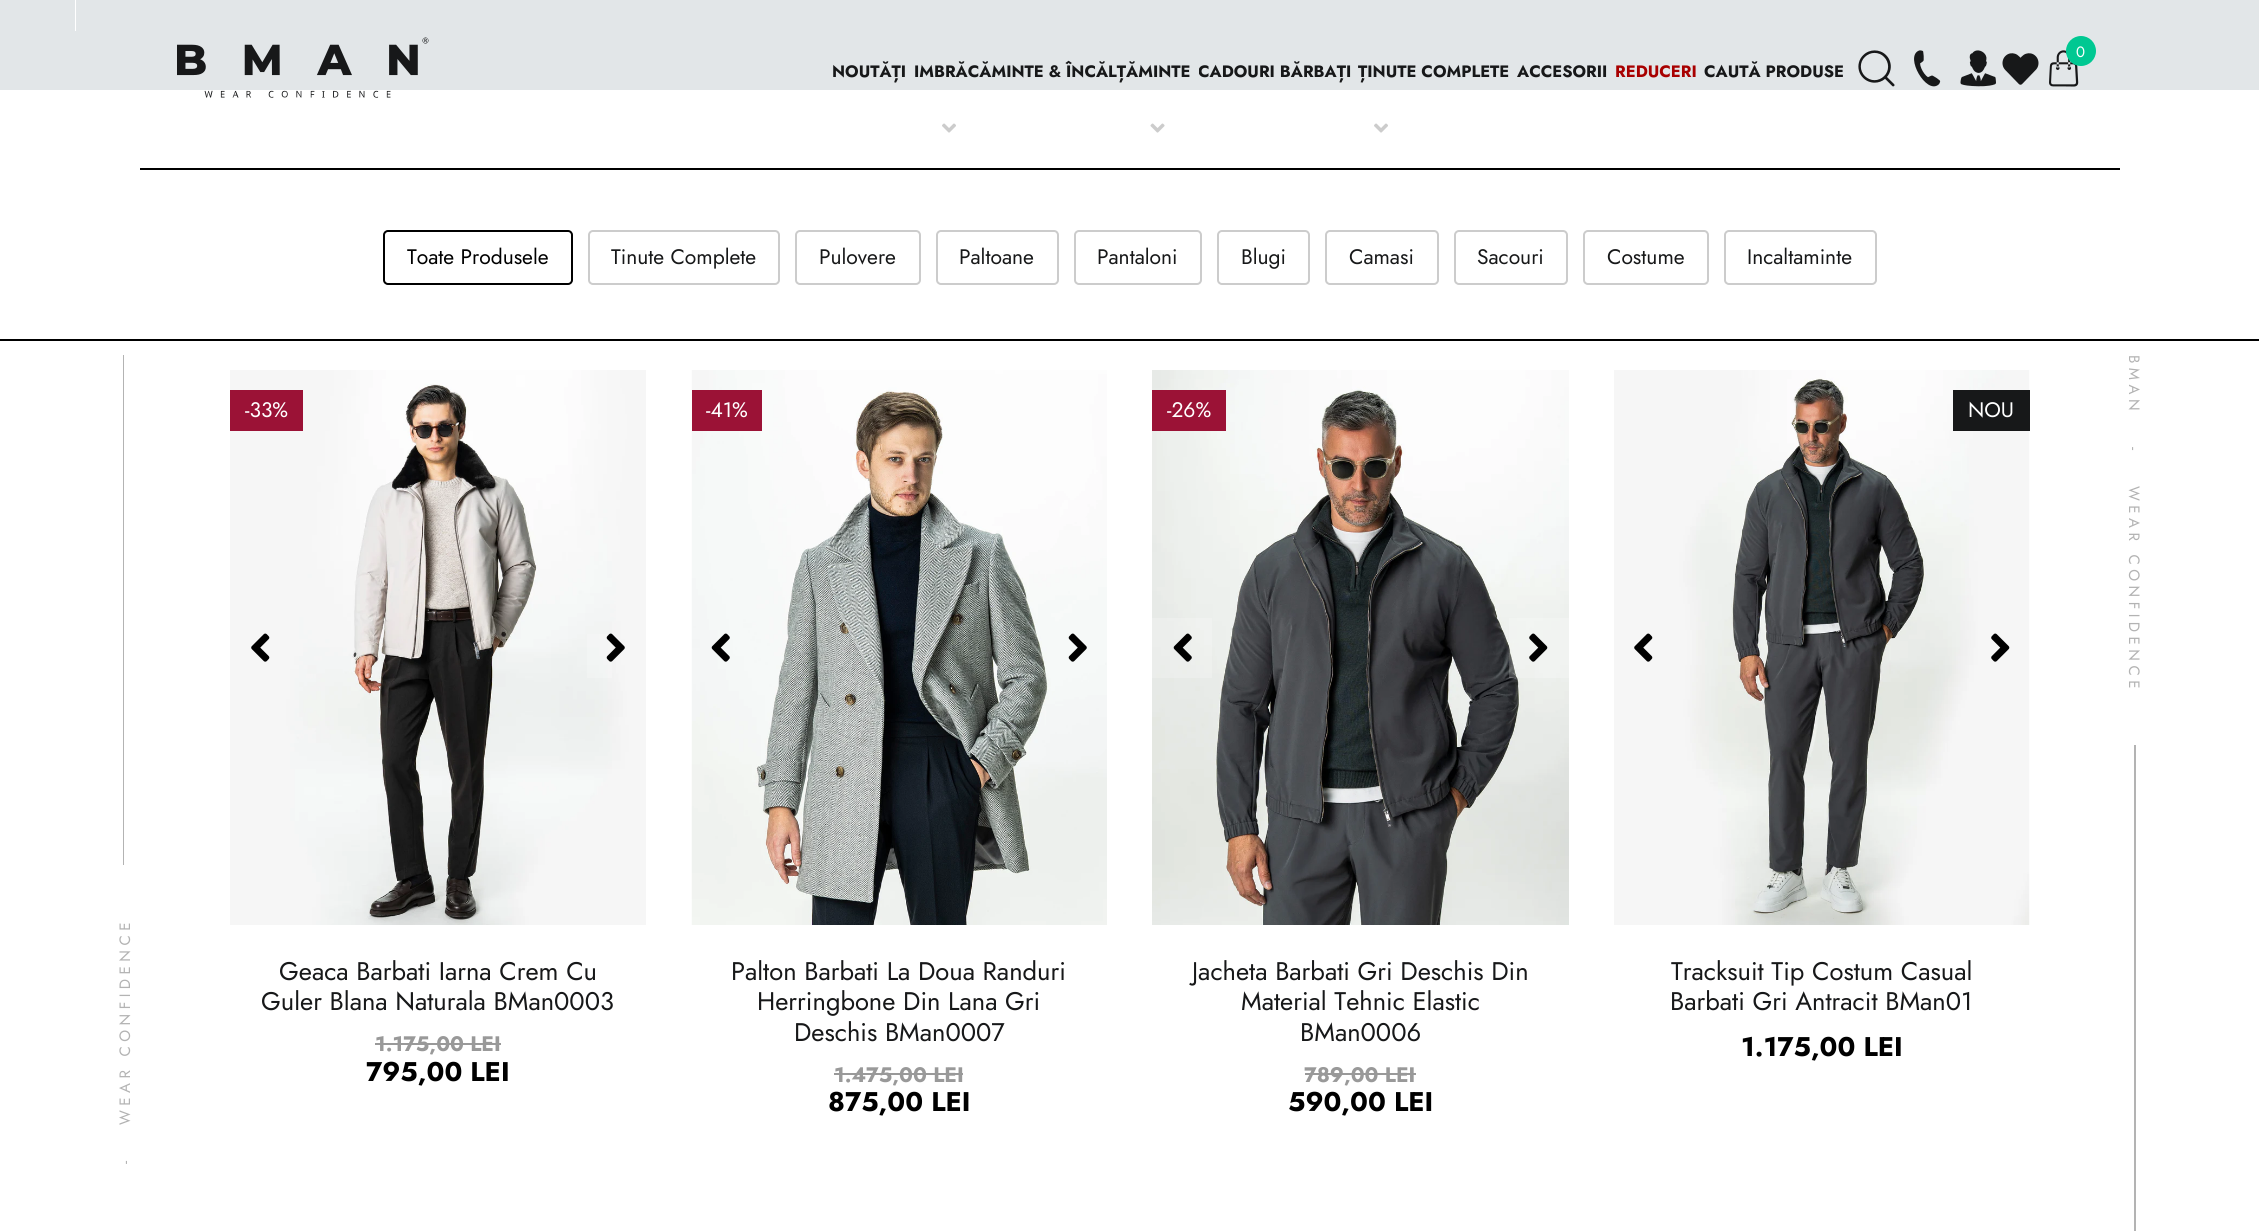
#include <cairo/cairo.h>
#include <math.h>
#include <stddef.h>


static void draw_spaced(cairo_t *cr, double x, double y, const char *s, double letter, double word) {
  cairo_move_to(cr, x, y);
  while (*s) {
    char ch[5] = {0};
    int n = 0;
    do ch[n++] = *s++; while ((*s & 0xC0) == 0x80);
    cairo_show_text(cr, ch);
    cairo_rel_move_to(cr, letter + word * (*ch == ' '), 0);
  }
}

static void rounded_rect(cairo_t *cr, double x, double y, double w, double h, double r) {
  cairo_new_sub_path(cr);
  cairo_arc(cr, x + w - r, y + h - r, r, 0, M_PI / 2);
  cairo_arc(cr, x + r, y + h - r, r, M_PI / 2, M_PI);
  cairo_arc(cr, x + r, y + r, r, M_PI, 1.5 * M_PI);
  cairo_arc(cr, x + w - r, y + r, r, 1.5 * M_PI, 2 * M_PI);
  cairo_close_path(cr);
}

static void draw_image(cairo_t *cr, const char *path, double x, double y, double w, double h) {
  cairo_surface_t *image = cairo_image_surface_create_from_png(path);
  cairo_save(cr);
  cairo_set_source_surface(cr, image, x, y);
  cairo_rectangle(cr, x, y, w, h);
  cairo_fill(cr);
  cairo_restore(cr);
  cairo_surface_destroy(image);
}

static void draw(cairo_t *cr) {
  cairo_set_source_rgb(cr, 1, 1, 1);
  cairo_paint(cr);
  cairo_set_source_rgb(cr, 112 / 255.0, 132 / 255.0, 140 / 255.0);
  cairo_rectangle(cr, 0, 0, 2259, 90);
  cairo_fill(cr);
  cairo_set_source_rgb(cr, 1, 1, 1);
  cairo_rectangle(cr, 75, 0, 1, 31);
  cairo_fill(cr);
  draw_image(cr, "images/7.png", 942, 123, 14, 10);
  draw_image(cr, "images/8.png", 1150, 123, 15, 10);
  draw_image(cr, "images/7.png", 1374, 123, 14, 10);
  cairo_set_source_rgba(cr, 1, 1, 1, 0.8);
  cairo_rectangle(cr, 0, 0, 2259, 133);
  cairo_fill(cr);
  draw_image(cr, "images/1.png", 177, 37, 252, 61);
  draw_image(cr, "images/2.png", 1858, 50, 37, 37);
  draw_image(cr, "images/3.png", 1914, 50, 27, 37);
  draw_image(cr, "images/4.png", 1960, 50, 36, 37);
  draw_image(cr, "images/5.png", 2002, 53, 37, 32);
  draw_image(cr, "images/6.png", 2049, 50, 30, 37);
  cairo_set_source_rgb(cr, 0, 200 / 255.0, 146 / 255.0);
  cairo_arc(cr, 2081, 51, 15, 0, 2 * M_PI);
  cairo_fill(cr);
  cairo_set_source_rgb(cr, 0, 0, 0);
  cairo_rectangle(cr, 140, 168, 1980, 2);
  cairo_fill(cr);
  rounded_rect(cr, 384, 231, 188, 53, 4);
  cairo_stroke(cr);
  rounded_rect(cr, 589, 231, 190, 53, 4);
  cairo_set_source_rgb(cr, 204 / 255.0, 204 / 255.0, 204 / 255.0);
  cairo_stroke(cr);
  rounded_rect(cr, 796, 231, 124, 53, 4);
  cairo_stroke(cr);
  rounded_rect(cr, 937, 231, 121, 53, 4);
  cairo_stroke(cr);
  rounded_rect(cr, 1075, 231, 126, 53, 4);
  cairo_stroke(cr);
  rounded_rect(cr, 1218, 231, 91, 53, 4);
  cairo_stroke(cr);
  rounded_rect(cr, 1326, 231, 112, 53, 4);
  cairo_stroke(cr);
  rounded_rect(cr, 1455, 231, 112, 53, 4);
  cairo_stroke(cr);
  rounded_rect(cr, 1584, 231, 124, 53, 4);
  cairo_stroke(cr);
  rounded_rect(cr, 1725, 231, 151, 53, 4);
  cairo_stroke(cr);
  cairo_set_source_rgb(cr, 0, 0, 0);
  cairo_rectangle(cr, 0, 339, 2259, 2);
  cairo_fill(cr);
  cairo_set_source_rgb(cr, 179 / 255.0, 179 / 255.0, 179 / 255.0);
  cairo_rectangle(cr, 123, 355, 1, 510);
  cairo_fill(cr);
  draw_image(cr, "images/9.png", 230, 370, 416, 555);
  cairo_set_source_rgb(cr, 155 / 255.0, 18 / 255.0, 54 / 255.0);
  cairo_rectangle(cr, 230, 390, 73, 41);
  cairo_fill(cr);
  draw_image(cr, "images/10.png", 251, 633, 19, 29);
  cairo_set_source_rgba(cr, 1, 1, 1, 0.2);
  cairo_rectangle(cr, 587, 634, 25, 44);
  cairo_fill(cr);
  draw_image(cr, "images/11.png", 606, 633, 19, 29);
  cairo_set_source_rgb(cr, 153 / 255.0, 153 / 255.0, 153 / 255.0);
  cairo_rectangle(cr, 375, 1043, 126, 2);
  cairo_fill(cr);
  draw_image(cr, "images/12.png", 691, 370, 416, 555);
  cairo_set_source_rgb(cr, 155 / 255.0, 18 / 255.0, 54 / 255.0);
  cairo_rectangle(cr, 692, 390, 70, 41);
  cairo_fill(cr);
  draw_image(cr, "images/13.png", 711, 633, 19, 29);
  draw_image(cr, "images/14.png", 1068, 633, 19, 29);
  cairo_set_source_rgb(cr, 153 / 255.0, 153 / 255.0, 153 / 255.0);
  cairo_rectangle(cr, 834, 1073, 129, 2);
  cairo_fill(cr);
  draw_image(cr, "images/15.png", 1152, 370, 417, 555);
  cairo_set_source_rgb(cr, 155 / 255.0, 18 / 255.0, 54 / 255.0);
  cairo_rectangle(cr, 1152, 390, 74, 41);
  cairo_fill(cr);
  cairo_set_source_rgba(cr, 1, 1, 1, 0.2);
  cairo_rectangle(cr, 1152, 618, 60, 60);
  cairo_fill(cr);
  draw_image(cr, "images/16.png", 1173, 633, 19, 29);
  cairo_rectangle(cr, 1509, 618, 60, 60);
  cairo_fill(cr);
  draw_image(cr, "images/17.png", 1529, 633, 19, 29);
  cairo_set_source_rgb(cr, 153 / 255.0, 153 / 255.0, 153 / 255.0);
  cairo_rectangle(cr, 1305, 1073, 111, 2);
  cairo_fill(cr);
  draw_image(cr, "images/18.png", 1614, 370, 416, 555);
  cairo_set_source_rgb(cr, 23 / 255.0, 24 / 255.0, 25 / 255.0);
  cairo_rectangle(cr, 1953, 390, 77, 41);
  cairo_fill(cr);
  draw_image(cr, "images/10.png", 1634, 633, 19, 29);
  draw_image(cr, "images/19.png", 1991, 633, 19, 29);
  cairo_set_source_rgb(cr, 179 / 255.0, 179 / 255.0, 179 / 255.0);
  cairo_rectangle(cr, 2134, 745, 2, 486);
  cairo_fill(cr);
  cairo_select_font_face(cr, "Jost", CAIRO_FONT_SLANT_NORMAL, CAIRO_FONT_WEIGHT_NORMAL);
  cairo_set_font_size(cr, 15);
  cairo_set_source_rgb(cr, 1, 1, 1);
  cairo_move_to(cr, 2076, 57);
  cairo_show_text(cr, "0");
  cairo_select_font_face(cr, "Jost", CAIRO_FONT_SLANT_NORMAL, CAIRO_FONT_WEIGHT_BOLD);
  cairo_set_font_size(cr, 16.5);
  cairo_set_source_rgb(cr, 23 / 255.0, 24 / 255.0, 25 / 255.0);
  cairo_move_to(cr, 832, 77);
  cairo_show_text(cr, "NOUTĂȚI");
  cairo_move_to(cr, 914, 77);
  cairo_show_text(cr, "IMBRĂCĂMINTE & ÎNCĂLȚĂMINTE");
  cairo_save(cr);
  cairo_rectangle(cr, 1199, 56, 153, 31);
  cairo_clip(cr);
  cairo_move_to(cr, 1198, 77);
  cairo_show_text(cr, "CADOURI BĂRBAȚI");
  cairo_restore(cr);
  cairo_move_to(cr, 1358, 77);
  cairo_show_text(cr, "ȚINUTE COMPLETE");
  cairo_move_to(cr, 1517, 77);
  cairo_show_text(cr, "ACCESORII");
  cairo_set_source_rgb(cr, 168 / 255.0, 0, 0);
  cairo_move_to(cr, 1615, 77);
  cairo_show_text(cr, "REDUCERI");
  cairo_set_source_rgb(cr, 23 / 255.0, 24 / 255.0, 25 / 255.0);
  cairo_move_to(cr, 1704, 77);
  cairo_show_text(cr, "CAUTĂ PRODUSE");
  cairo_select_font_face(cr, "Jost", CAIRO_FONT_SLANT_NORMAL, CAIRO_FONT_WEIGHT_NORMAL);
  cairo_set_font_size(cr, 21);
  cairo_set_source_rgb(cr, 0, 0, 0);
  cairo_move_to(cr, 407, 264);
  cairo_show_text(cr, "Toate Produsele");
  cairo_set_source_rgb(cr, 23 / 255.0, 24 / 255.0, 25 / 255.0);
  cairo_move_to(cr, 611, 264);
  cairo_show_text(cr, "Tinute Complete");
  cairo_move_to(cr, 819, 264);
  cairo_show_text(cr, "Pulovere");
  cairo_move_to(cr, 959, 264);
  cairo_show_text(cr, "Paltoane");
  cairo_move_to(cr, 1097, 264);
  cairo_show_text(cr, "Pantaloni");
  cairo_move_to(cr, 1241, 264);
  cairo_show_text(cr, "Blugi");
  cairo_move_to(cr, 1349, 264);
  cairo_show_text(cr, "Camasi");
  cairo_move_to(cr, 1477, 264);
  cairo_show_text(cr, "Sacouri");
  cairo_move_to(cr, 1607, 264);
  cairo_show_text(cr, "Costume");
  cairo_move_to(cr, 1747, 264);
  cairo_show_text(cr, "Incaltaminte");
  cairo_set_font_size(cr, 15);
  cairo_set_source_rgb(cr, 179 / 255.0, 179 / 255.0, 179 / 255.0);
  cairo_save(cr);
  cairo_translate(cr, 130, 1125);
  cairo_rotate(cr, -90 * M_PI / 180);
  draw_spaced(cr, 0, 0, "WEAR CONFIDENCE", 4.5, 0);
  cairo_restore(cr);
  cairo_save(cr);
  cairo_translate(cr, 130, 1164);
  cairo_rotate(cr, -90 * M_PI / 180);
  draw_spaced(cr, 0, 0, "-", 4.5, 0);
  cairo_restore(cr);
  cairo_set_font_size(cr, 21);
  cairo_set_source_rgb(cr, 1, 1, 1);
  cairo_move_to(cr, 245, 417);
  cairo_show_text(cr, "-33%");
  cairo_set_font_size(cr, 25.5);
  cairo_set_source_rgb(cr, 23 / 255.0, 24 / 255.0, 25 / 255.0);
  cairo_move_to(cr, 279, 980);
  cairo_show_text(cr, "Geaca Barbati Iarna Crem Cu");
  cairo_move_to(cr, 261, 1010);
  cairo_show_text(cr, "Guler Blana Naturala BMan0003");
  cairo_select_font_face(cr, "Jost", CAIRO_FONT_SLANT_NORMAL, CAIRO_FONT_WEIGHT_BOLD);
  cairo_set_font_size(cr, 21);
  cairo_set_source_rgb(cr, 153 / 255.0, 153 / 255.0, 153 / 255.0);
  cairo_move_to(cr, 375, 1051);
  cairo_show_text(cr, "1.175,00 LEI");
  cairo_set_font_size(cr, 27);
  cairo_set_source_rgb(cr, 0, 0, 0);
  cairo_move_to(cr, 366, 1081);
  cairo_show_text(cr, "795,00 LEI");
  cairo_select_font_face(cr, "Jost", CAIRO_FONT_SLANT_NORMAL, CAIRO_FONT_WEIGHT_NORMAL);
  cairo_set_font_size(cr, 21);
  cairo_set_source_rgb(cr, 1, 1, 1);
  cairo_move_to(cr, 706, 417);
  cairo_show_text(cr, "-41%");
  cairo_set_font_size(cr, 25.5);
  cairo_set_source_rgb(cr, 23 / 255.0, 24 / 255.0, 25 / 255.0);
  cairo_move_to(cr, 731, 980);
  cairo_show_text(cr, "Palton Barbati La Doua Randuri");
  cairo_move_to(cr, 757, 1010);
  cairo_show_text(cr, "Herringbone Din Lana Gri");
  cairo_move_to(cr, 794, 1041);
  cairo_show_text(cr, "Deschis BMan0007");
  cairo_select_font_face(cr, "Jost", CAIRO_FONT_SLANT_NORMAL, CAIRO_FONT_WEIGHT_BOLD);
  cairo_set_font_size(cr, 21);
  cairo_set_source_rgb(cr, 153 / 255.0, 153 / 255.0, 153 / 255.0);
  cairo_move_to(cr, 834, 1082);
  cairo_show_text(cr, "1.475,00 LEI");
  cairo_set_font_size(cr, 27);
  cairo_set_source_rgb(cr, 0, 0, 0);
  cairo_move_to(cr, 828, 1111);
  cairo_show_text(cr, "875,00 LEI");
  cairo_select_font_face(cr, "Jost", CAIRO_FONT_SLANT_NORMAL, CAIRO_FONT_WEIGHT_NORMAL);
  cairo_set_font_size(cr, 21);
  cairo_set_source_rgb(cr, 1, 1, 1);
  cairo_move_to(cr, 1167, 417);
  cairo_show_text(cr, "-26%");
  cairo_set_font_size(cr, 25.5);
  cairo_set_source_rgb(cr, 23 / 255.0, 24 / 255.0, 25 / 255.0);
  cairo_move_to(cr, 1192, 980);
  cairo_show_text(cr, "Jacheta Barbati Gri Deschis Din");
  cairo_move_to(cr, 1241, 1010);
  cairo_show_text(cr, "Material Tehnic Elastic");
  cairo_move_to(cr, 1300, 1041);
  cairo_show_text(cr, "BMan0006");
  cairo_select_font_face(cr, "Jost", CAIRO_FONT_SLANT_NORMAL, CAIRO_FONT_WEIGHT_BOLD);
  cairo_set_font_size(cr, 21);
  cairo_set_source_rgb(cr, 153 / 255.0, 153 / 255.0, 153 / 255.0);
  cairo_move_to(cr, 1304, 1082);
  cairo_show_text(cr, "789,00 LEI");
  cairo_set_font_size(cr, 27);
  cairo_set_source_rgb(cr, 0, 0, 0);
  cairo_move_to(cr, 1288, 1111);
  cairo_show_text(cr, "590,00 LEI");
  cairo_select_font_face(cr, "Jost", CAIRO_FONT_SLANT_NORMAL, CAIRO_FONT_WEIGHT_NORMAL);
  cairo_set_font_size(cr, 21);
  cairo_set_source_rgb(cr, 1, 1, 1);
  cairo_move_to(cr, 1968, 417);
  cairo_show_text(cr, "NOU");
  cairo_set_font_size(cr, 25.5);
  cairo_set_source_rgb(cr, 23 / 255.0, 24 / 255.0, 25 / 255.0);
  cairo_move_to(cr, 1671, 980);
  cairo_show_text(cr, "Tracksuit Tip Costum Casual");
  cairo_move_to(cr, 1670, 1010);
  cairo_show_text(cr, "Barbati Gri Antracit BMan01");
  cairo_select_font_face(cr, "Jost", CAIRO_FONT_SLANT_NORMAL, CAIRO_FONT_WEIGHT_BOLD);
  cairo_set_font_size(cr, 27);
  cairo_set_source_rgb(cr, 0, 0, 0);
  cairo_move_to(cr, 1741, 1056);
  cairo_show_text(cr, "1.175,00 LEI");
  cairo_select_font_face(cr, "Jost", CAIRO_FONT_SLANT_NORMAL, CAIRO_FONT_WEIGHT_NORMAL);
  cairo_set_font_size(cr, 15);
  cairo_set_source_rgb(cr, 179 / 255.0, 179 / 255.0, 179 / 255.0);
  cairo_save(cr);
  cairo_translate(cr, 2129, 355);
  cairo_rotate(cr, 90 * M_PI / 180);
  draw_spaced(cr, 0, 0, "BMAN", 4.5, 0);
  cairo_restore(cr);
  cairo_save(cr);
  cairo_translate(cr, 2129, 447);
  cairo_rotate(cr, 90 * M_PI / 180);
  draw_spaced(cr, 0, 0, "-", 4.5, 0);
  cairo_restore(cr);
  cairo_save(cr);
  cairo_translate(cr, 2129, 486);
  cairo_rotate(cr, 90 * M_PI / 180);
  draw_spaced(cr, 0, 0, "WEAR CONFIDENCE", 4.5, 0);
  cairo_restore(cr);
}

int main(void) {
  cairo_surface_t *surface = cairo_image_surface_create(CAIRO_FORMAT_RGB24, 2259, 1231);
  cairo_t *cr = cairo_create(surface);
  cairo_font_options_t *options = cairo_font_options_create();
  cairo_font_options_set_hint_metrics(options, CAIRO_HINT_METRICS_OFF);
  cairo_font_options_set_hint_style(options, CAIRO_HINT_STYLE_NONE);
  cairo_set_font_options(cr, options);
  cairo_set_miter_limit(cr, 4);
  draw(cr);
  cairo_surface_write_to_png(surface, "out.png");
  cairo_font_options_destroy(options);
  cairo_destroy(cr);
  cairo_surface_destroy(surface);
  return 0;
}
